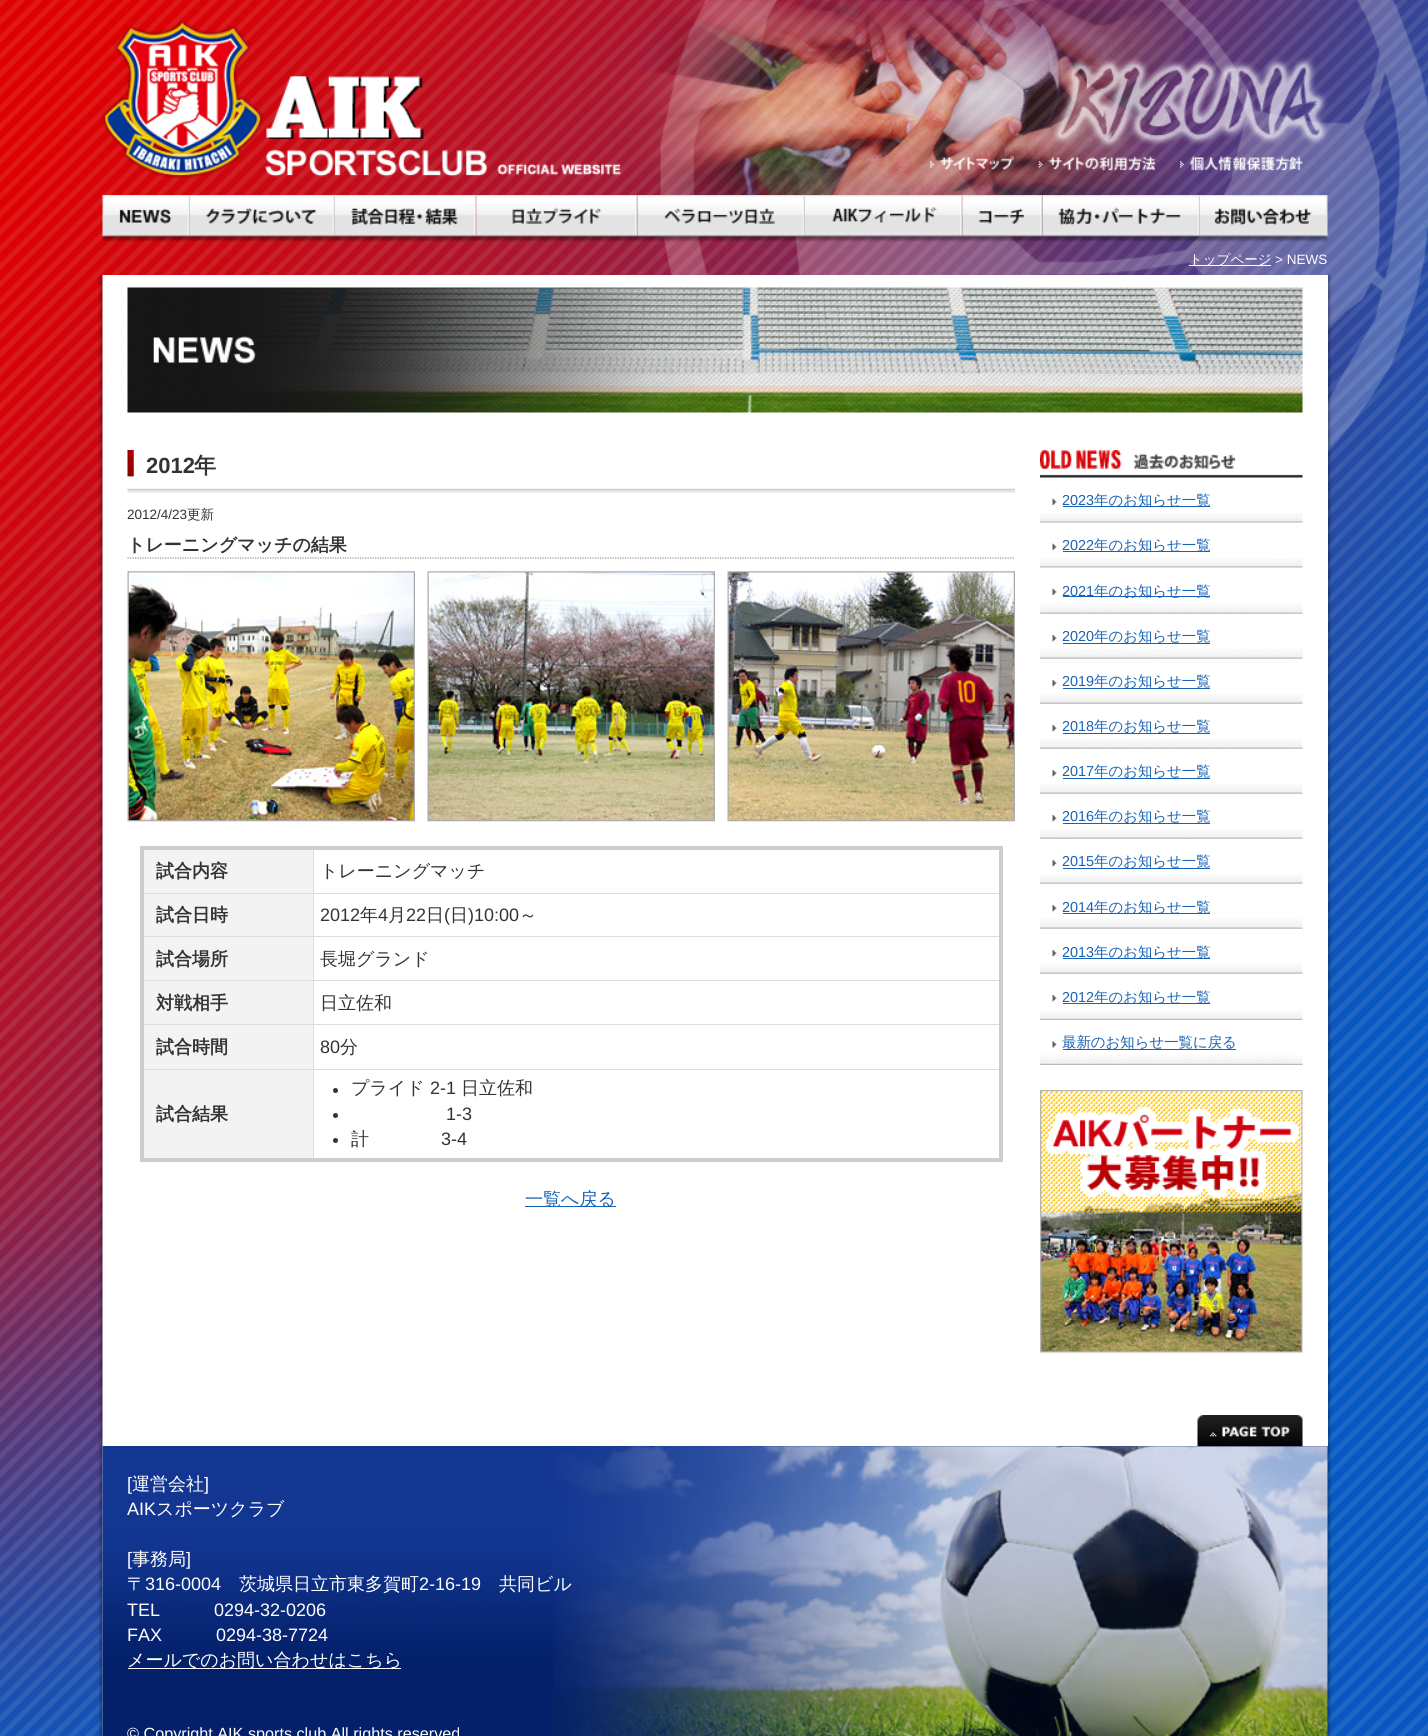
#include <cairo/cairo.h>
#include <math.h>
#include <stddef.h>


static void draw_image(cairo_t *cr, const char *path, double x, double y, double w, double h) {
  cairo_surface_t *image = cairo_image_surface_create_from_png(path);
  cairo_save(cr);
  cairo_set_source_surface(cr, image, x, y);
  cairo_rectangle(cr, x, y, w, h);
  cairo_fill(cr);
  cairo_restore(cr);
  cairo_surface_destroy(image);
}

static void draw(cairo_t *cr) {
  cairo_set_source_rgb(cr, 1, 1, 1);
  cairo_paint(cr);
  draw_image(cr, "images/1.png", 0, 0, 1428, 1736);
  draw_image(cr, "images/2.png", 0, 0, 1428, 1736);
  draw_image(cr, "images/3.png", 102, 20, 520, 159);
  draw_image(cr, "images/4.png", 930, 156, 84, 14);
  draw_image(cr, "images/5.png", 1038, 156, 117, 15);
  draw_image(cr, "images/6.png", 1180, 156, 123, 16);
  draw_image(cr, "images/7.png", 102, 195, 88, 47);
  draw_image(cr, "images/8.png", 190, 195, 145, 47);
  draw_image(cr, "images/9.png", 335, 195, 142, 47);
  draw_image(cr, "images/10.png", 476, 195, 162, 47);
  draw_image(cr, "images/11.png", 637, 195, 168, 47);
  draw_image(cr, "images/12.png", 805, 195, 158, 47);
  draw_image(cr, "images/13.png", 962, 195, 81, 47);
  draw_image(cr, "images/14.png", 1042, 195, 158, 47);
  draw_image(cr, "images/15.png", 1200, 195, 128, 47);
  cairo_set_source_rgb(cr, 1, 1, 1);
  cairo_rectangle(cr, 1189, 265, 82, 1);
  cairo_fill(cr);
  draw_image(cr, "images/16.png", 98, 275, 1234, 1461);
  cairo_rectangle(cr, 1327, 275, 1, 1171);
  cairo_fill(cr);
  draw_image(cr, "images/17.png", 127, 287, 1176, 126);
  draw_image(cr, "images/18.png", 127, 450, 888, 43);
  cairo_new_path(cr);
  cairo_move_to(cr, 127.5, 558);
  cairo_line_to(cr, 1015, 558);
  cairo_set_source_rgb(cr, 146 / 255.0, 146 / 255.0, 146 / 255.0);
  cairo_set_line_width(cr, 1.2);
  cairo_set_dash(cr, (double[]){1.25, 1.25}, 2, 0);
  cairo_stroke(cr);
  draw_image(cr, "images/19.png", 127, 571, 288, 251);
  draw_image(cr, "images/20.png", 427, 571, 288, 251);
  draw_image(cr, "images/21.png", 727, 571, 288, 251);
  cairo_set_source_rgb(cr, 221 / 255.0, 221 / 255.0, 221 / 255.0);
  cairo_rectangle(cr, 313, 893, 688, 1);
  cairo_fill(cr);
  cairo_set_source_rgb(cr, 243 / 255.0, 243 / 255.0, 243 / 255.0);
  cairo_rectangle(cr, 144, 894, 169, 86);
  cairo_fill(cr);
  cairo_set_source_rgb(cr, 221 / 255.0, 221 / 255.0, 221 / 255.0);
  cairo_rectangle(cr, 313, 936, 688, 1);
  cairo_fill(cr);
  cairo_rectangle(cr, 313, 980, 688, 1);
  cairo_fill(cr);
  cairo_rectangle(cr, 313, 1024, 688, 1);
  cairo_fill(cr);
  cairo_rectangle(cr, 313, 1069, 688, 1);
  cairo_fill(cr);
  cairo_rectangle(cr, 313, 1069, 1, 91);
  cairo_fill(cr);
  cairo_rectangle(cr, 141, 1069, 173, 1);
  cairo_fill(cr);
  cairo_rectangle(cr, 313, 1024, 1, 46);
  cairo_fill(cr);
  cairo_rectangle(cr, 141, 1024, 173, 1);
  cairo_fill(cr);
  cairo_rectangle(cr, 313, 980, 1, 45);
  cairo_fill(cr);
  cairo_rectangle(cr, 141, 980, 173, 1);
  cairo_fill(cr);
  cairo_rectangle(cr, 313, 936, 1, 45);
  cairo_fill(cr);
  cairo_rectangle(cr, 141, 936, 173, 1);
  cairo_fill(cr);
  cairo_rectangle(cr, 313, 893, 1, 45);
  cairo_fill(cr);
  cairo_rectangle(cr, 141, 893, 173, 1);
  cairo_fill(cr);
  cairo_rectangle(cr, 313, 848, 1, 46);
  cairo_fill(cr);
  cairo_set_source_rgb(cr, 205 / 255.0, 205 / 255.0, 205 / 255.0);
  cairo_rectangle(cr, 140, 846, 863, 4);
  cairo_fill(cr);
  cairo_rectangle(cr, 999, 846, 4, 315);
  cairo_fill(cr);
  cairo_rectangle(cr, 140, 1158, 863, 4);
  cairo_fill(cr);
  cairo_rectangle(cr, 140, 846, 4, 315);
  cairo_fill(cr);
  cairo_set_source_rgb(cr, 243 / 255.0, 243 / 255.0, 243 / 255.0);
  cairo_rectangle(cr, 144, 850, 169, 43);
  cairo_fill(cr);
  cairo_rectangle(cr, 144, 981, 169, 43);
  cairo_fill(cr);
  cairo_rectangle(cr, 144, 1025, 169, 44);
  cairo_fill(cr);
  cairo_rectangle(cr, 144, 1070, 169, 88);
  cairo_fill(cr);
  cairo_set_source_rgb(cr, 51 / 255.0, 51 / 255.0, 51 / 255.0);
  cairo_arc(cr, 335.5, 1090.5, 2.5, 0, 2 * M_PI);
  cairo_fill(cr);
  cairo_arc(cr, 335.5, 1115.5, 2.5, 0, 2 * M_PI);
  cairo_fill(cr);
  cairo_arc(cr, 335.5, 1140.5, 2.5, 0, 2 * M_PI);
  cairo_fill(cr);
  cairo_set_source_rgb(cr, 23 / 255.0, 98 / 255.0, 182 / 255.0);
  cairo_rectangle(cr, 525, 1206, 91, 1);
  cairo_fill(cr);
  draw_image(cr, "images/22.png", 1040, 450, 263, 28);
  draw_image(cr, "images/23.png", 1040, 513, 263, 10);
  draw_image(cr, "images/24.png", 1052, 498, 5, 7);
  cairo_rectangle(cr, 1063, 506, 147, 1);
  cairo_fill(cr);
  draw_image(cr, "images/23.png", 1040, 558, 263, 10);
  draw_image(cr, "images/24.png", 1052, 543, 5, 7);
  cairo_rectangle(cr, 1063, 551, 147, 1);
  cairo_fill(cr);
  draw_image(cr, "images/25.png", 1040, 604, 263, 10);
  draw_image(cr, "images/24.png", 1052, 588, 5, 7);
  cairo_rectangle(cr, 1063, 596, 147, 1);
  cairo_fill(cr);
  draw_image(cr, "images/26.png", 1040, 649, 263, 10);
  draw_image(cr, "images/27.png", 1052, 635, 5, 7);
  cairo_rectangle(cr, 1063, 643, 147, 1);
  cairo_fill(cr);
  draw_image(cr, "images/26.png", 1040, 694, 263, 10);
  draw_image(cr, "images/27.png", 1052, 680, 5, 7);
  cairo_rectangle(cr, 1063, 688, 147, 1);
  cairo_fill(cr);
  draw_image(cr, "images/26.png", 1040, 739, 263, 10);
  draw_image(cr, "images/27.png", 1052, 725, 5, 7);
  cairo_rectangle(cr, 1063, 733, 147, 1);
  cairo_fill(cr);
  draw_image(cr, "images/26.png", 1040, 784, 263, 10);
  draw_image(cr, "images/27.png", 1052, 770, 5, 7);
  cairo_rectangle(cr, 1063, 778, 147, 1);
  cairo_fill(cr);
  draw_image(cr, "images/26.png", 1040, 829, 263, 10);
  draw_image(cr, "images/27.png", 1052, 815, 5, 7);
  cairo_rectangle(cr, 1063, 823, 147, 1);
  cairo_fill(cr);
  draw_image(cr, "images/26.png", 1040, 874, 263, 10);
  draw_image(cr, "images/27.png", 1052, 860, 5, 7);
  cairo_rectangle(cr, 1063, 868, 147, 1);
  cairo_fill(cr);
  draw_image(cr, "images/26.png", 1040, 919, 263, 10);
  draw_image(cr, "images/27.png", 1052, 905, 5, 7);
  cairo_rectangle(cr, 1063, 913, 147, 1);
  cairo_fill(cr);
  draw_image(cr, "images/26.png", 1040, 964, 263, 10);
  draw_image(cr, "images/27.png", 1052, 950, 5, 7);
  cairo_rectangle(cr, 1063, 958, 147, 1);
  cairo_fill(cr);
  draw_image(cr, "images/28.png", 1040, 1010, 263, 10);
  draw_image(cr, "images/27.png", 1052, 995, 5, 7);
  cairo_rectangle(cr, 1063, 1003, 147, 1);
  cairo_fill(cr);
  draw_image(cr, "images/28.png", 1040, 1055, 263, 10);
  draw_image(cr, "images/29.png", 1052, 1041, 5, 7);
  cairo_rectangle(cr, 1063, 1049, 173, 1);
  cairo_fill(cr);
  draw_image(cr, "images/30.png", 1040, 1090, 263, 263);
  cairo_set_source_rgb(cr, 18 / 255.0, 54 / 255.0, 145 / 255.0);
  cairo_rectangle(cr, 103, 1446, 1225, 290);
  cairo_fill(cr);
  draw_image(cr, "images/32.png", 102, 1446, 1226, 290);
  draw_image(cr, "images/33.png", 553, 1446, 775, 290);
  draw_image(cr, "images/31.png", 1197, 1415, 106, 32);
  cairo_set_source_rgb(cr, 1, 1, 1);
  cairo_rectangle(cr, 128, 1668, 273, 1);
  cairo_fill(cr);
  cairo_select_font_face(cr, "WenQuanYi Zen Hei Medium", CAIRO_FONT_SLANT_NORMAL, CAIRO_FONT_WEIGHT_NORMAL);
  cairo_set_font_size(cr, 13.5);
  cairo_move_to(cr, 1189, 264);
  cairo_show_text(cr, "トップページ");
  cairo_select_font_face(cr, "Liberation Sans", CAIRO_FONT_SLANT_NORMAL, CAIRO_FONT_WEIGHT_NORMAL);
  cairo_move_to(cr, 1275, 264);
  cairo_show_text(cr, "> NEWS");
  cairo_select_font_face(cr, "Liberation Sans", CAIRO_FONT_SLANT_NORMAL, CAIRO_FONT_WEIGHT_BOLD);
  cairo_set_font_size(cr, 22);
  cairo_set_source_rgb(cr, 51 / 255.0, 51 / 255.0, 51 / 255.0);
  cairo_move_to(cr, 146, 473);
  cairo_show_text(cr, "2012");
  cairo_select_font_face(cr, "WenQuanYi Zen Hei", CAIRO_FONT_SLANT_NORMAL, CAIRO_FONT_WEIGHT_BOLD);
  cairo_move_to(cr, 194, 473);
  cairo_show_text(cr, "年");
  cairo_select_font_face(cr, "Liberation Sans", CAIRO_FONT_SLANT_NORMAL, CAIRO_FONT_WEIGHT_NORMAL);
  cairo_set_font_size(cr, 13.5);
  cairo_move_to(cr, 127, 519);
  cairo_show_text(cr, "2012/4/23");
  cairo_select_font_face(cr, "WenQuanYi Zen Hei Medium", CAIRO_FONT_SLANT_NORMAL, CAIRO_FONT_WEIGHT_NORMAL);
  cairo_move_to(cr, 187, 519);
  cairo_show_text(cr, "更新");
  cairo_select_font_face(cr, "WenQuanYi Zen Hei", CAIRO_FONT_SLANT_NORMAL, CAIRO_FONT_WEIGHT_BOLD);
  cairo_set_font_size(cr, 18);
  cairo_move_to(cr, 127, 551);
  cairo_show_text(cr, "トレーニングマッチの結果");
  cairo_move_to(cr, 156, 877);
  cairo_show_text(cr, "試合内容");
  cairo_select_font_face(cr, "WenQuanYi Zen Hei Medium", CAIRO_FONT_SLANT_NORMAL, CAIRO_FONT_WEIGHT_NORMAL);
  cairo_move_to(cr, 320, 877);
  cairo_show_text(cr, "トレーニングマッチ");
  cairo_select_font_face(cr, "WenQuanYi Zen Hei", CAIRO_FONT_SLANT_NORMAL, CAIRO_FONT_WEIGHT_BOLD);
  cairo_move_to(cr, 156, 921);
  cairo_show_text(cr, "試合日時");
  cairo_select_font_face(cr, "Liberation Sans", CAIRO_FONT_SLANT_NORMAL, CAIRO_FONT_WEIGHT_NORMAL);
  cairo_move_to(cr, 320, 921);
  cairo_show_text(cr, "2012");
  cairo_select_font_face(cr, "WenQuanYi Zen Hei Medium", CAIRO_FONT_SLANT_NORMAL, CAIRO_FONT_WEIGHT_NORMAL);
  cairo_move_to(cr, 360, 921);
  cairo_show_text(cr, "年");
  cairo_select_font_face(cr, "Liberation Sans", CAIRO_FONT_SLANT_NORMAL, CAIRO_FONT_WEIGHT_NORMAL);
  cairo_move_to(cr, 378, 921);
  cairo_show_text(cr, "4");
  cairo_select_font_face(cr, "WenQuanYi Zen Hei Medium", CAIRO_FONT_SLANT_NORMAL, CAIRO_FONT_WEIGHT_NORMAL);
  cairo_move_to(cr, 388, 921);
  cairo_show_text(cr, "月");
  cairo_select_font_face(cr, "Liberation Sans", CAIRO_FONT_SLANT_NORMAL, CAIRO_FONT_WEIGHT_NORMAL);
  cairo_move_to(cr, 406, 921);
  cairo_show_text(cr, "22");
  cairo_select_font_face(cr, "WenQuanYi Zen Hei Medium", CAIRO_FONT_SLANT_NORMAL, CAIRO_FONT_WEIGHT_NORMAL);
  cairo_move_to(cr, 426, 921);
  cairo_show_text(cr, "日");
  cairo_select_font_face(cr, "Liberation Sans", CAIRO_FONT_SLANT_NORMAL, CAIRO_FONT_WEIGHT_NORMAL);
  cairo_move_to(cr, 444, 921);
  cairo_show_text(cr, "(");
  cairo_select_font_face(cr, "WenQuanYi Zen Hei Medium", CAIRO_FONT_SLANT_NORMAL, CAIRO_FONT_WEIGHT_NORMAL);
  cairo_move_to(cr, 450, 921);
  cairo_show_text(cr, "日");
  cairo_select_font_face(cr, "Liberation Sans", CAIRO_FONT_SLANT_NORMAL, CAIRO_FONT_WEIGHT_NORMAL);
  cairo_move_to(cr, 468, 921);
  cairo_show_text(cr, ")10:00");
  cairo_select_font_face(cr, "WenQuanYi Zen Hei Medium", CAIRO_FONT_SLANT_NORMAL, CAIRO_FONT_WEIGHT_NORMAL);
  cairo_move_to(cr, 519, 921);
  cairo_show_text(cr, "～");
  cairo_select_font_face(cr, "WenQuanYi Zen Hei", CAIRO_FONT_SLANT_NORMAL, CAIRO_FONT_WEIGHT_BOLD);
  cairo_move_to(cr, 156, 965);
  cairo_show_text(cr, "試合場所");
  cairo_select_font_face(cr, "WenQuanYi Zen Hei Medium", CAIRO_FONT_SLANT_NORMAL, CAIRO_FONT_WEIGHT_NORMAL);
  cairo_move_to(cr, 320, 965);
  cairo_show_text(cr, "長堀グランド");
  cairo_select_font_face(cr, "WenQuanYi Zen Hei", CAIRO_FONT_SLANT_NORMAL, CAIRO_FONT_WEIGHT_BOLD);
  cairo_move_to(cr, 156, 1009);
  cairo_show_text(cr, "対戦相手");
  cairo_select_font_face(cr, "WenQuanYi Zen Hei Medium", CAIRO_FONT_SLANT_NORMAL, CAIRO_FONT_WEIGHT_NORMAL);
  cairo_move_to(cr, 320, 1009);
  cairo_show_text(cr, "日立佐和");
  cairo_select_font_face(cr, "WenQuanYi Zen Hei", CAIRO_FONT_SLANT_NORMAL, CAIRO_FONT_WEIGHT_BOLD);
  cairo_move_to(cr, 156, 1053);
  cairo_show_text(cr, "試合時間");
  cairo_select_font_face(cr, "Liberation Sans", CAIRO_FONT_SLANT_NORMAL, CAIRO_FONT_WEIGHT_NORMAL);
  cairo_move_to(cr, 320, 1053);
  cairo_show_text(cr, "80");
  cairo_select_font_face(cr, "WenQuanYi Zen Hei Medium", CAIRO_FONT_SLANT_NORMAL, CAIRO_FONT_WEIGHT_NORMAL);
  cairo_move_to(cr, 340, 1053);
  cairo_show_text(cr, "分");
  cairo_select_font_face(cr, "WenQuanYi Zen Hei", CAIRO_FONT_SLANT_NORMAL, CAIRO_FONT_WEIGHT_BOLD);
  cairo_move_to(cr, 156, 1120);
  cairo_show_text(cr, "試合結果");
  cairo_select_font_face(cr, "WenQuanYi Zen Hei Medium", CAIRO_FONT_SLANT_NORMAL, CAIRO_FONT_WEIGHT_NORMAL);
  cairo_move_to(cr, 351, 1094);
  cairo_show_text(cr, "プライド");
  cairo_select_font_face(cr, "Liberation Sans", CAIRO_FONT_SLANT_NORMAL, CAIRO_FONT_WEIGHT_NORMAL);
  cairo_move_to(cr, 430, 1094);
  cairo_show_text(cr, "2-1");
  cairo_select_font_face(cr, "WenQuanYi Zen Hei Medium", CAIRO_FONT_SLANT_NORMAL, CAIRO_FONT_WEIGHT_NORMAL);
  cairo_move_to(cr, 461, 1094);
  cairo_show_text(cr, "日立佐和");
  cairo_select_font_face(cr, "Liberation Sans", CAIRO_FONT_SLANT_NORMAL, CAIRO_FONT_WEIGHT_NORMAL);
  cairo_move_to(cr, 446, 1120);
  cairo_show_text(cr, "1-3");
  cairo_select_font_face(cr, "WenQuanYi Zen Hei Medium", CAIRO_FONT_SLANT_NORMAL, CAIRO_FONT_WEIGHT_NORMAL);
  cairo_move_to(cr, 351, 1145);
  cairo_show_text(cr, "計");
  cairo_select_font_face(cr, "Liberation Sans", CAIRO_FONT_SLANT_NORMAL, CAIRO_FONT_WEIGHT_NORMAL);
  cairo_move_to(cr, 441, 1145);
  cairo_show_text(cr, "3-4");
  cairo_select_font_face(cr, "WenQuanYi Zen Hei Medium", CAIRO_FONT_SLANT_NORMAL, CAIRO_FONT_WEIGHT_NORMAL);
  cairo_set_source_rgb(cr, 23 / 255.0, 98 / 255.0, 182 / 255.0);
  cairo_move_to(cr, 525, 1205);
  cairo_show_text(cr, "一覧へ戻る");
  cairo_select_font_face(cr, "Liberation Sans", CAIRO_FONT_SLANT_NORMAL, CAIRO_FONT_WEIGHT_NORMAL);
  cairo_set_font_size(cr, 14.4);
  cairo_move_to(cr, 1062, 505);
  cairo_show_text(cr, "2023");
  cairo_select_font_face(cr, "WenQuanYi Zen Hei Medium", CAIRO_FONT_SLANT_NORMAL, CAIRO_FONT_WEIGHT_NORMAL);
  cairo_move_to(cr, 1094, 505);
  cairo_show_text(cr, "年のお知らせ一覧");
  cairo_select_font_face(cr, "Liberation Sans", CAIRO_FONT_SLANT_NORMAL, CAIRO_FONT_WEIGHT_NORMAL);
  cairo_move_to(cr, 1062, 550);
  cairo_show_text(cr, "2022");
  cairo_select_font_face(cr, "WenQuanYi Zen Hei Medium", CAIRO_FONT_SLANT_NORMAL, CAIRO_FONT_WEIGHT_NORMAL);
  cairo_move_to(cr, 1094, 550);
  cairo_show_text(cr, "年のお知らせ一覧");
  cairo_select_font_face(cr, "Liberation Sans", CAIRO_FONT_SLANT_NORMAL, CAIRO_FONT_WEIGHT_NORMAL);
  cairo_move_to(cr, 1062, 596);
  cairo_show_text(cr, "2021");
  cairo_select_font_face(cr, "WenQuanYi Zen Hei Medium", CAIRO_FONT_SLANT_NORMAL, CAIRO_FONT_WEIGHT_NORMAL);
  cairo_move_to(cr, 1094, 596);
  cairo_show_text(cr, "年のお知らせ一覧");
  cairo_select_font_face(cr, "Liberation Sans", CAIRO_FONT_SLANT_NORMAL, CAIRO_FONT_WEIGHT_NORMAL);
  cairo_move_to(cr, 1062, 641);
  cairo_show_text(cr, "2020");
  cairo_select_font_face(cr, "WenQuanYi Zen Hei Medium", CAIRO_FONT_SLANT_NORMAL, CAIRO_FONT_WEIGHT_NORMAL);
  cairo_move_to(cr, 1094, 641);
  cairo_show_text(cr, "年のお知らせ一覧");
  cairo_select_font_face(cr, "Liberation Sans", CAIRO_FONT_SLANT_NORMAL, CAIRO_FONT_WEIGHT_NORMAL);
  cairo_move_to(cr, 1062, 686);
  cairo_show_text(cr, "2019");
  cairo_select_font_face(cr, "WenQuanYi Zen Hei Medium", CAIRO_FONT_SLANT_NORMAL, CAIRO_FONT_WEIGHT_NORMAL);
  cairo_move_to(cr, 1094, 686);
  cairo_show_text(cr, "年のお知らせ一覧");
  cairo_select_font_face(cr, "Liberation Sans", CAIRO_FONT_SLANT_NORMAL, CAIRO_FONT_WEIGHT_NORMAL);
  cairo_move_to(cr, 1062, 731);
  cairo_show_text(cr, "2018");
  cairo_select_font_face(cr, "WenQuanYi Zen Hei Medium", CAIRO_FONT_SLANT_NORMAL, CAIRO_FONT_WEIGHT_NORMAL);
  cairo_move_to(cr, 1094, 731);
  cairo_show_text(cr, "年のお知らせ一覧");
  cairo_select_font_face(cr, "Liberation Sans", CAIRO_FONT_SLANT_NORMAL, CAIRO_FONT_WEIGHT_NORMAL);
  cairo_move_to(cr, 1062, 776);
  cairo_show_text(cr, "2017");
  cairo_select_font_face(cr, "WenQuanYi Zen Hei Medium", CAIRO_FONT_SLANT_NORMAL, CAIRO_FONT_WEIGHT_NORMAL);
  cairo_move_to(cr, 1094, 776);
  cairo_show_text(cr, "年のお知らせ一覧");
  cairo_select_font_face(cr, "Liberation Sans", CAIRO_FONT_SLANT_NORMAL, CAIRO_FONT_WEIGHT_NORMAL);
  cairo_move_to(cr, 1062, 821);
  cairo_show_text(cr, "2016");
  cairo_select_font_face(cr, "WenQuanYi Zen Hei Medium", CAIRO_FONT_SLANT_NORMAL, CAIRO_FONT_WEIGHT_NORMAL);
  cairo_move_to(cr, 1094, 821);
  cairo_show_text(cr, "年のお知らせ一覧");
  cairo_select_font_face(cr, "Liberation Sans", CAIRO_FONT_SLANT_NORMAL, CAIRO_FONT_WEIGHT_NORMAL);
  cairo_move_to(cr, 1062, 866);
  cairo_show_text(cr, "2015");
  cairo_select_font_face(cr, "WenQuanYi Zen Hei Medium", CAIRO_FONT_SLANT_NORMAL, CAIRO_FONT_WEIGHT_NORMAL);
  cairo_move_to(cr, 1094, 866);
  cairo_show_text(cr, "年のお知らせ一覧");
  cairo_select_font_face(cr, "Liberation Sans", CAIRO_FONT_SLANT_NORMAL, CAIRO_FONT_WEIGHT_NORMAL);
  cairo_move_to(cr, 1062, 912);
  cairo_show_text(cr, "2014");
  cairo_select_font_face(cr, "WenQuanYi Zen Hei Medium", CAIRO_FONT_SLANT_NORMAL, CAIRO_FONT_WEIGHT_NORMAL);
  cairo_move_to(cr, 1094, 912);
  cairo_show_text(cr, "年のお知らせ一覧");
  cairo_select_font_face(cr, "Liberation Sans", CAIRO_FONT_SLANT_NORMAL, CAIRO_FONT_WEIGHT_NORMAL);
  cairo_move_to(cr, 1062, 957);
  cairo_show_text(cr, "2013");
  cairo_select_font_face(cr, "WenQuanYi Zen Hei Medium", CAIRO_FONT_SLANT_NORMAL, CAIRO_FONT_WEIGHT_NORMAL);
  cairo_move_to(cr, 1094, 957);
  cairo_show_text(cr, "年のお知らせ一覧");
  cairo_select_font_face(cr, "Liberation Sans", CAIRO_FONT_SLANT_NORMAL, CAIRO_FONT_WEIGHT_NORMAL);
  cairo_move_to(cr, 1062, 1002);
  cairo_show_text(cr, "2012");
  cairo_select_font_face(cr, "WenQuanYi Zen Hei Medium", CAIRO_FONT_SLANT_NORMAL, CAIRO_FONT_WEIGHT_NORMAL);
  cairo_move_to(cr, 1094, 1002);
  cairo_show_text(cr, "年のお知らせ一覧");
  cairo_move_to(cr, 1062, 1047);
  cairo_show_text(cr, "最新のお知らせ一覧に戻る");
  cairo_select_font_face(cr, "Liberation Sans", CAIRO_FONT_SLANT_NORMAL, CAIRO_FONT_WEIGHT_NORMAL);
  cairo_set_font_size(cr, 18);
  cairo_set_source_rgb(cr, 1, 1, 1);
  cairo_move_to(cr, 127, 1490);
  cairo_show_text(cr, "[");
  cairo_select_font_face(cr, "WenQuanYi Zen Hei Medium", CAIRO_FONT_SLANT_NORMAL, CAIRO_FONT_WEIGHT_NORMAL);
  cairo_move_to(cr, 132, 1490);
  cairo_show_text(cr, "運営会社");
  cairo_select_font_face(cr, "Liberation Sans", CAIRO_FONT_SLANT_NORMAL, CAIRO_FONT_WEIGHT_NORMAL);
  cairo_move_to(cr, 204, 1490);
  cairo_show_text(cr, "]");
  cairo_move_to(cr, 127, 1515);
  cairo_show_text(cr, "AIK");
  cairo_select_font_face(cr, "WenQuanYi Zen Hei Medium", CAIRO_FONT_SLANT_NORMAL, CAIRO_FONT_WEIGHT_NORMAL);
  cairo_move_to(cr, 156, 1515);
  cairo_show_text(cr, "スポーツクラブ");
  cairo_select_font_face(cr, "Liberation Sans", CAIRO_FONT_SLANT_NORMAL, CAIRO_FONT_WEIGHT_NORMAL);
  cairo_move_to(cr, 127, 1565);
  cairo_show_text(cr, "[");
  cairo_select_font_face(cr, "WenQuanYi Zen Hei Medium", CAIRO_FONT_SLANT_NORMAL, CAIRO_FONT_WEIGHT_NORMAL);
  cairo_move_to(cr, 132, 1565);
  cairo_show_text(cr, "事務局");
  cairo_select_font_face(cr, "Liberation Sans", CAIRO_FONT_SLANT_NORMAL, CAIRO_FONT_WEIGHT_NORMAL);
  cairo_move_to(cr, 186, 1565);
  cairo_show_text(cr, "]");
  cairo_select_font_face(cr, "WenQuanYi Zen Hei Medium", CAIRO_FONT_SLANT_NORMAL, CAIRO_FONT_WEIGHT_NORMAL);
  cairo_move_to(cr, 127, 1590);
  cairo_show_text(cr, "〒");
  cairo_select_font_face(cr, "Liberation Sans", CAIRO_FONT_SLANT_NORMAL, CAIRO_FONT_WEIGHT_NORMAL);
  cairo_move_to(cr, 145, 1590);
  cairo_show_text(cr, "316-0004");
  cairo_select_font_face(cr, "WenQuanYi Zen Hei Medium", CAIRO_FONT_SLANT_NORMAL, CAIRO_FONT_WEIGHT_NORMAL);
  cairo_move_to(cr, 239, 1590);
  cairo_show_text(cr, "茨城県日立市東多賀町");
  cairo_select_font_face(cr, "Liberation Sans", CAIRO_FONT_SLANT_NORMAL, CAIRO_FONT_WEIGHT_NORMAL);
  cairo_move_to(cr, 419, 1590);
  cairo_show_text(cr, "2-16-19");
  cairo_select_font_face(cr, "WenQuanYi Zen Hei Medium", CAIRO_FONT_SLANT_NORMAL, CAIRO_FONT_WEIGHT_NORMAL);
  cairo_move_to(cr, 499, 1590);
  cairo_show_text(cr, "共同ビル");
  cairo_select_font_face(cr, "Liberation Sans", CAIRO_FONT_SLANT_NORMAL, CAIRO_FONT_WEIGHT_NORMAL);
  cairo_move_to(cr, 127, 1616);
  cairo_show_text(cr, "TEL");
  cairo_move_to(cr, 214, 1616);
  cairo_show_text(cr, "0294-32-0206");
  cairo_move_to(cr, 127, 1641);
  cairo_show_text(cr, "FAX");
  cairo_move_to(cr, 216, 1641);
  cairo_show_text(cr, "0294-38-7724");
  cairo_select_font_face(cr, "WenQuanYi Zen Hei Medium", CAIRO_FONT_SLANT_NORMAL, CAIRO_FONT_WEIGHT_NORMAL);
  cairo_move_to(cr, 127, 1666);
  cairo_show_text(cr, "メールでのお問い合わせはこちら");
  cairo_select_font_face(cr, "Liberation Sans", CAIRO_FONT_SLANT_NORMAL, CAIRO_FONT_WEIGHT_NORMAL);
  cairo_set_font_size(cr, 16.2);
  cairo_move_to(cr, 127, 1739);
  cairo_show_text(cr, "© Copyright AIK sports club All rights reserved");
}

int main(void) {
  cairo_surface_t *surface = cairo_image_surface_create(CAIRO_FORMAT_RGB24, 1428, 1736);
  cairo_t *cr = cairo_create(surface);
  cairo_font_options_t *options = cairo_font_options_create();
  cairo_font_options_set_hint_metrics(options, CAIRO_HINT_METRICS_OFF);
  cairo_font_options_set_hint_style(options, CAIRO_HINT_STYLE_NONE);
  cairo_set_font_options(cr, options);
  cairo_set_miter_limit(cr, 4);
  draw(cr);
  cairo_surface_write_to_png(surface, "out.png");
  cairo_font_options_destroy(options);
  cairo_destroy(cr);
  cairo_surface_destroy(surface);
  return 0;
}
